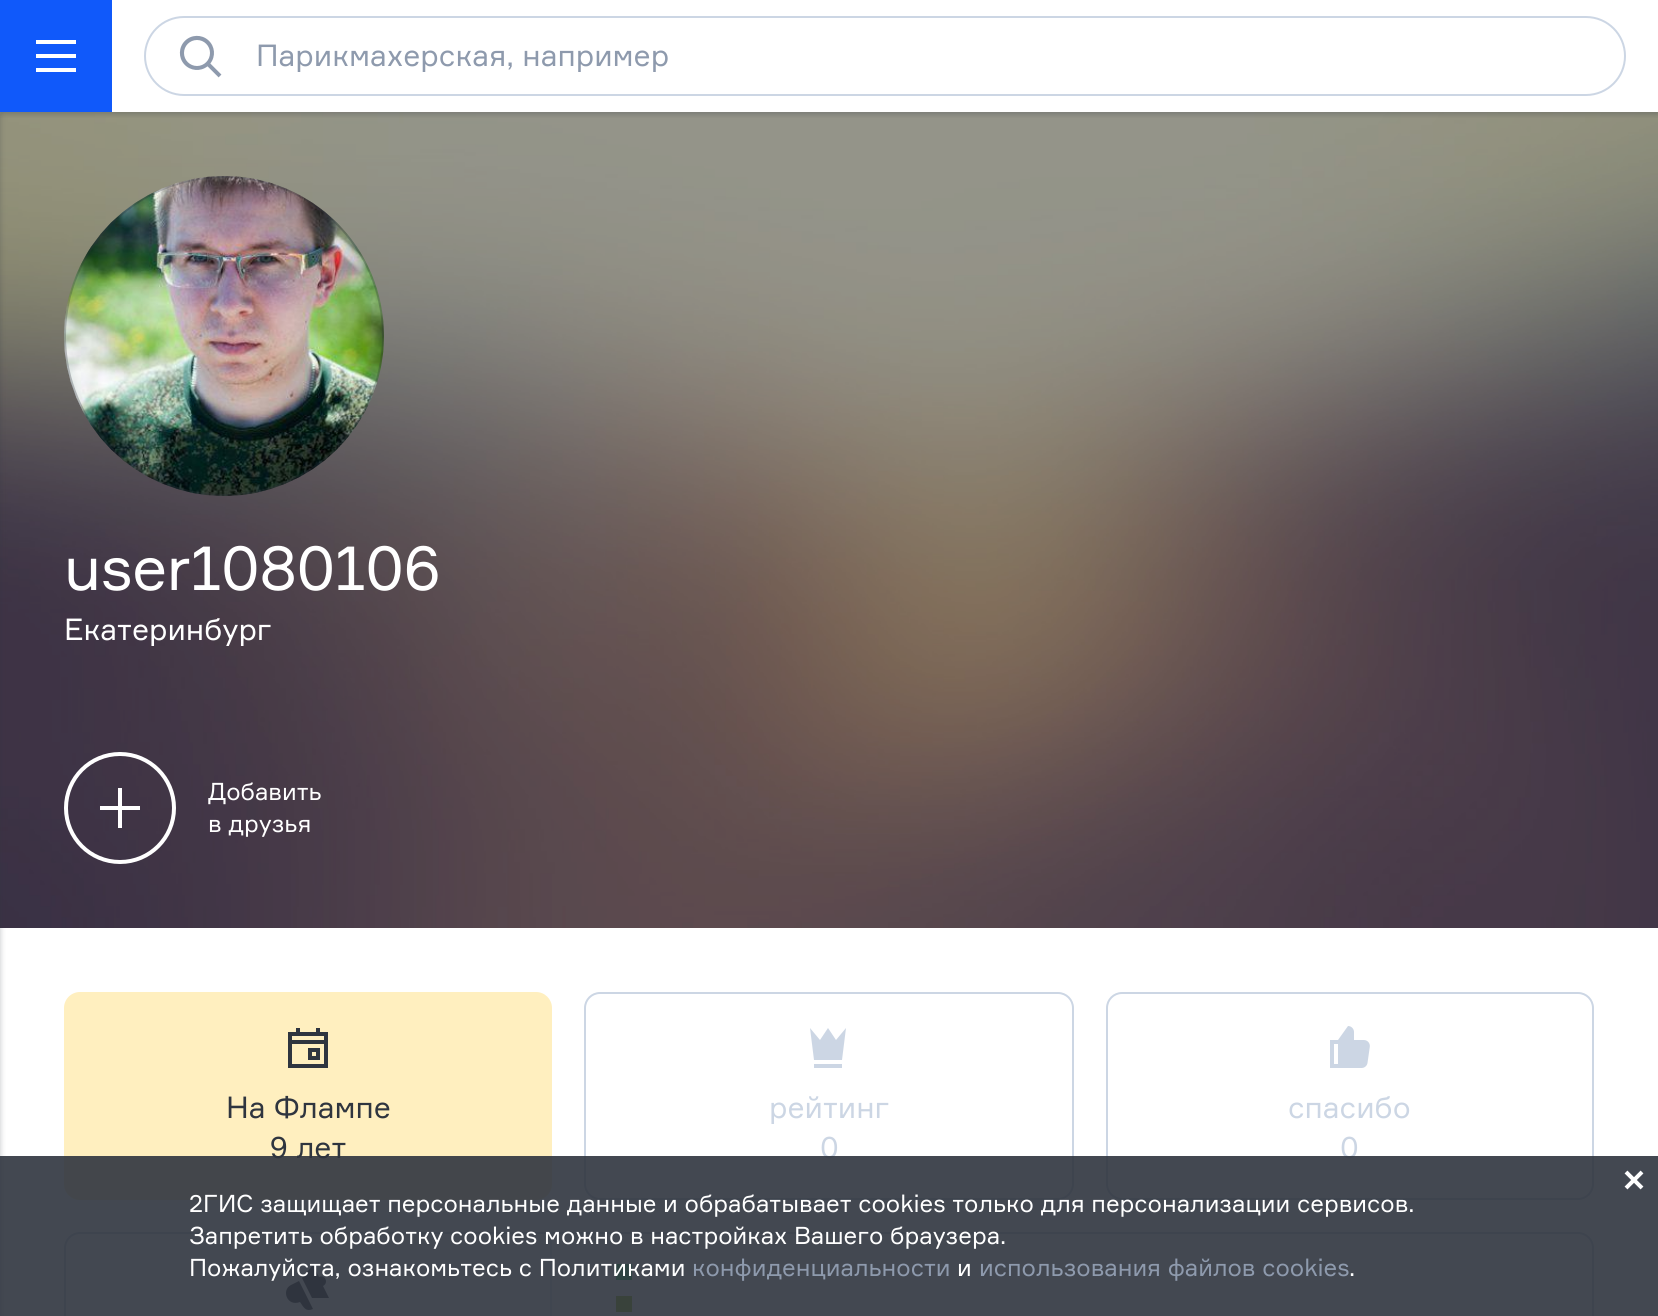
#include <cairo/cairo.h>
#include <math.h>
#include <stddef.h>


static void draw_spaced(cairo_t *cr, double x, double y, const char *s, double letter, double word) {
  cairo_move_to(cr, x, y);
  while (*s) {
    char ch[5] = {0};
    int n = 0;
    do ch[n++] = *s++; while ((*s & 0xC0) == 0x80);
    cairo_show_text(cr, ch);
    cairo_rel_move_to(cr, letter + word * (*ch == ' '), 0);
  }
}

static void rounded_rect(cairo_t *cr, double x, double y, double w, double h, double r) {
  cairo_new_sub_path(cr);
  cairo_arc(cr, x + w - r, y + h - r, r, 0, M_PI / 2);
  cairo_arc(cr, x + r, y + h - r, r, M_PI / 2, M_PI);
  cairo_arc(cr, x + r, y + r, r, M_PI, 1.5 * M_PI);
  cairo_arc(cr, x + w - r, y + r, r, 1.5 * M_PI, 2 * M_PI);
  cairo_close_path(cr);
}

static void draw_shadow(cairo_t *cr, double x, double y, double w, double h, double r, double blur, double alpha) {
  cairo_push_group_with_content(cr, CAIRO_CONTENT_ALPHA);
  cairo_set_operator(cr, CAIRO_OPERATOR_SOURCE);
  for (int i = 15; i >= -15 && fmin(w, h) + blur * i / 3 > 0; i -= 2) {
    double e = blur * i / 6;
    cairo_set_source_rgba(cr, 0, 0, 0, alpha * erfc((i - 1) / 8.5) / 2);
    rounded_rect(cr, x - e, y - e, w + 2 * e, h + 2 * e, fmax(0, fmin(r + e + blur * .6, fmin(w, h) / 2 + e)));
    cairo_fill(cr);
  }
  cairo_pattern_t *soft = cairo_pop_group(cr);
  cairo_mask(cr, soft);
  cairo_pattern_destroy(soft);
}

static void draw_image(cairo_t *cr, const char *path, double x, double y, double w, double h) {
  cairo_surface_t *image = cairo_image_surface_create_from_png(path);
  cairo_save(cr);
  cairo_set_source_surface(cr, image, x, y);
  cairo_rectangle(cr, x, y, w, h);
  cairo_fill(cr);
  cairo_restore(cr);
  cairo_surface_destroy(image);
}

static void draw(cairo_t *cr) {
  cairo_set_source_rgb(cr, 1, 1, 1);
  cairo_paint(cr);
  draw_image(cr, "images/2.png", 0, 112, 1658, 816);
  cairo_set_source_rgb(cr, 47 / 255.0, 53 / 255.0, 63 / 255.0);
  draw_shadow(cr, -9, 114, 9, 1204, 0, 3, 0.3);
  cairo_save(cr);
  cairo_rectangle(cr, 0, 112, 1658, 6);
  cairo_clip(cr);
  draw_shadow(cr, 0, 2, 1658, 112, 0, 3, 0.3);
  cairo_restore(cr);
  cairo_set_source_rgb(cr, 16 / 255.0, 89 / 255.0, 250 / 255.0);
  cairo_rectangle(cr, 0, 0, 112, 112);
  cairo_fill(cr);
  cairo_set_source_rgb(cr, 1, 1, 1);
  cairo_new_path(cr);
  cairo_move_to(cr, 36, 40);
  cairo_line_to(cr, 76, 40);
  cairo_line_to(cr, 76, 44);
  cairo_line_to(cr, 36, 44);
  cairo_close_path(cr);
  cairo_move_to(cr, 36, 54);
  cairo_line_to(cr, 76, 54);
  cairo_line_to(cr, 76, 58);
  cairo_line_to(cr, 36, 58);
  cairo_close_path(cr);
  cairo_move_to(cr, 36, 68);
  cairo_line_to(cr, 76, 68);
  cairo_line_to(cr, 76, 72);
  cairo_line_to(cr, 36, 72);
  cairo_close_path(cr);
  cairo_fill(cr);
  rounded_rect(cr, 145, 17, 1480, 78, 39);
  cairo_set_source_rgb(cr, 204 / 255.0, 214 / 255.0, 228 / 255.0);
  cairo_stroke(cr);
  draw_image(cr, "images/1.png", 179, 35, 43, 43);
  draw_image(cr, "images/3.png", 64, 176, 320, 320);
  cairo_arc(cr, 224, 336, 159, 0, 2 * M_PI);
  cairo_set_source_rgba(cr, 47 / 255.0, 53 / 255.0, 63 / 255.0, 0.3);
  cairo_stroke(cr);
  cairo_arc(cr, 120, 808, 54, 0, 2 * M_PI);
  cairo_set_source_rgb(cr, 1, 1, 1);
  cairo_set_line_width(cr, 4);
  cairo_stroke(cr);
  cairo_new_path(cr);
  cairo_move_to(cr, 140, 806);
  cairo_line_to(cr, 122, 806);
  cairo_line_to(cr, 122, 788);
  cairo_line_to(cr, 118, 788);
  cairo_line_to(cr, 118, 806);
  cairo_line_to(cr, 100, 806);
  cairo_line_to(cr, 100, 810);
  cairo_line_to(cr, 118, 810);
  cairo_line_to(cr, 118, 828);
  cairo_line_to(cr, 122, 828);
  cairo_line_to(cr, 122, 810);
  cairo_line_to(cr, 140, 810);
  cairo_close_path(cr);
  cairo_fill(cr);
  cairo_set_source_rgb(cr, 1, 239 / 255.0, 191 / 255.0);
  rounded_rect(cr, 64, 992, 488, 208, 16);
  cairo_fill(cr);
  draw_image(cr, "images/4.png", 288, 1028, 40, 40);
  rounded_rect(cr, 585, 993, 488, 206, 15);
  cairo_set_source_rgb(cr, 204 / 255.0, 214 / 255.0, 228 / 255.0);
  cairo_set_line_width(cr, 2);
  cairo_stroke(cr);
  cairo_new_path(cr);
  cairo_move_to(cr, 810, 1028);
  cairo_line_to(cr, 820, 1040);
  cairo_line_to(cr, 828, 1028);
  cairo_line_to(cr, 836, 1040);
  cairo_line_to(cr, 846, 1028);
  cairo_line_to(cr, 842, 1060);
  cairo_line_to(cr, 814, 1060);
  cairo_close_path(cr);
  cairo_move_to(cr, 814, 1064);
  cairo_line_to(cr, 842, 1064);
  cairo_line_to(cr, 842, 1068);
  cairo_line_to(cr, 814, 1068);
  cairo_close_path(cr);
  cairo_fill(cr);
  rounded_rect(cr, 1107, 993, 486, 206, 15);
  cairo_stroke(cr);
  draw_image(cr, "images/5.png", 1330, 1026, 40, 42);
  rounded_rect(cr, 65, 1233, 1528, 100, 15);
  cairo_stroke(cr);
  cairo_set_source_rgb(cr, 229 / 255.0, 234 / 255.0, 241 / 255.0);
  cairo_rectangle(cr, 550, 1232, 2, 84);
  cairo_fill(cr);
  cairo_set_source_rgb(cr, 47 / 255.0, 53 / 255.0, 63 / 255.0);
  cairo_new_path(cr);
  cairo_move_to(cr, 329, 1298);
  cairo_line_to(cr, 323, 1286);
  cairo_curve_to(cr, 329, 1283, 325, 1274, 319, 1277);
  cairo_line_to(cr, 313, 1265);
  cairo_line_to(cr, 302, 1278);
  cairo_line_to(cr, 312, 1298);
  cairo_close_path(cr);
  cairo_move_to(cr, 291, 1285);
  cairo_curve_to(cr, 281, 1290, 287, 1307, 300, 1302);
  cairo_curve_to(cr, 304, 1308, 306, 1312, 313, 1309);
  cairo_line_to(cr, 299, 1281);
  cairo_close_path(cr);
  cairo_fill(cr);
  cairo_set_source_rgb(cr, 28 / 255.0, 191 / 255.0, 96 / 255.0);
  cairo_rectangle(cr, 616, 1264, 16, 16);
  cairo_fill(cr);
  cairo_set_source_rgb(cr, 153 / 255.0, 194 / 255.0, 29 / 255.0);
  cairo_rectangle(cr, 616, 1296, 16, 16);
  cairo_fill(cr);
  cairo_select_font_face(cr, "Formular", CAIRO_FONT_SLANT_NORMAL, CAIRO_FONT_WEIGHT_NORMAL);
  cairo_set_font_size(cr, 30);
  cairo_set_source_rgb(cr, 142 / 255.0, 154 / 255.0, 173 / 255.0);
  cairo_move_to(cr, 256, 66);
  cairo_show_text(cr, "Парикмахерская, например");
  cairo_set_font_size(cr, 62);
  cairo_set_source_rgb(cr, 1, 1, 1);
  draw_spaced(cr, 64, 590, "user1080106", -0.6, 0);
  cairo_set_font_size(cr, 30);
  cairo_move_to(cr, 64, 640);
  cairo_show_text(cr, "Екатеринбург");
  cairo_set_font_size(cr, 24);
  cairo_move_to(cr, 208, 800);
  cairo_show_text(cr, "Добавить");
  cairo_move_to(cr, 208, 832);
  cairo_show_text(cr, "в друзья");
  cairo_set_font_size(cr, 30);
  cairo_set_source_rgb(cr, 47 / 255.0, 53 / 255.0, 63 / 255.0);
  cairo_move_to(cr, 226, 1118);
  cairo_show_text(cr, "На Флампе");
  cairo_move_to(cr, 270, 1158);
  cairo_show_text(cr, "9 лет");
  cairo_set_source_rgb(cr, 204 / 255.0, 214 / 255.0, 228 / 255.0);
  cairo_move_to(cr, 769, 1118);
  cairo_show_text(cr, "рейтинг");
  cairo_move_to(cr, 820, 1158);
  cairo_show_text(cr, "0");
  cairo_move_to(cr, 1288, 1118);
  cairo_show_text(cr, "спасибо");
  cairo_move_to(cr, 1340, 1158);
  cairo_show_text(cr, "0");
  cairo_set_source_rgba(cr, 47 / 255.0, 53 / 255.0, 63 / 255.0, 0.9);
  cairo_rectangle(cr, 0, 1156, 1658, 160);
  cairo_fill(cr);
  draw_image(cr, "images/6.png", 1624, 1170, 20, 20);
  cairo_set_font_size(cr, 24);
  cairo_set_source_rgb(cr, 1, 1, 1);
  cairo_move_to(cr, 189, 1212);
  cairo_show_text(cr, "2ГИС защищает персональные данные и обрабатывает cookies только для персонализации сервисов.");
  cairo_move_to(cr, 189, 1244);
  cairo_show_text(cr, "Запретить обработку cookies можно в настройках Вашего браузера.");
  cairo_move_to(cr, 189, 1276);
  cairo_show_text(cr, "Пожалуйста, ознакомьтесь с Политиками");
  cairo_set_source_rgb(cr, 142 / 255.0, 154 / 255.0, 173 / 255.0);
  cairo_move_to(cr, 692, 1276);
  cairo_show_text(cr, "конфиденциальности");
  cairo_set_source_rgb(cr, 1, 1, 1);
  cairo_move_to(cr, 957, 1276);
  cairo_show_text(cr, "и");
  cairo_set_source_rgb(cr, 142 / 255.0, 154 / 255.0, 173 / 255.0);
  cairo_move_to(cr, 979, 1276);
  cairo_show_text(cr, "использования файлов cookies");
  cairo_set_source_rgb(cr, 1, 1, 1);
  cairo_move_to(cr, 1349, 1276);
  cairo_show_text(cr, ".");
}

int main(void) {
  cairo_surface_t *surface = cairo_image_surface_create(CAIRO_FORMAT_RGB24, 1658, 1316);
  cairo_t *cr = cairo_create(surface);
  cairo_font_options_t *options = cairo_font_options_create();
  cairo_font_options_set_hint_metrics(options, CAIRO_HINT_METRICS_OFF);
  cairo_font_options_set_hint_style(options, CAIRO_HINT_STYLE_NONE);
  cairo_set_font_options(cr, options);
  cairo_set_miter_limit(cr, 4);
  draw(cr);
  cairo_surface_write_to_png(surface, "out.png");
  cairo_font_options_destroy(options);
  cairo_destroy(cr);
  cairo_surface_destroy(surface);
  return 0;
}
